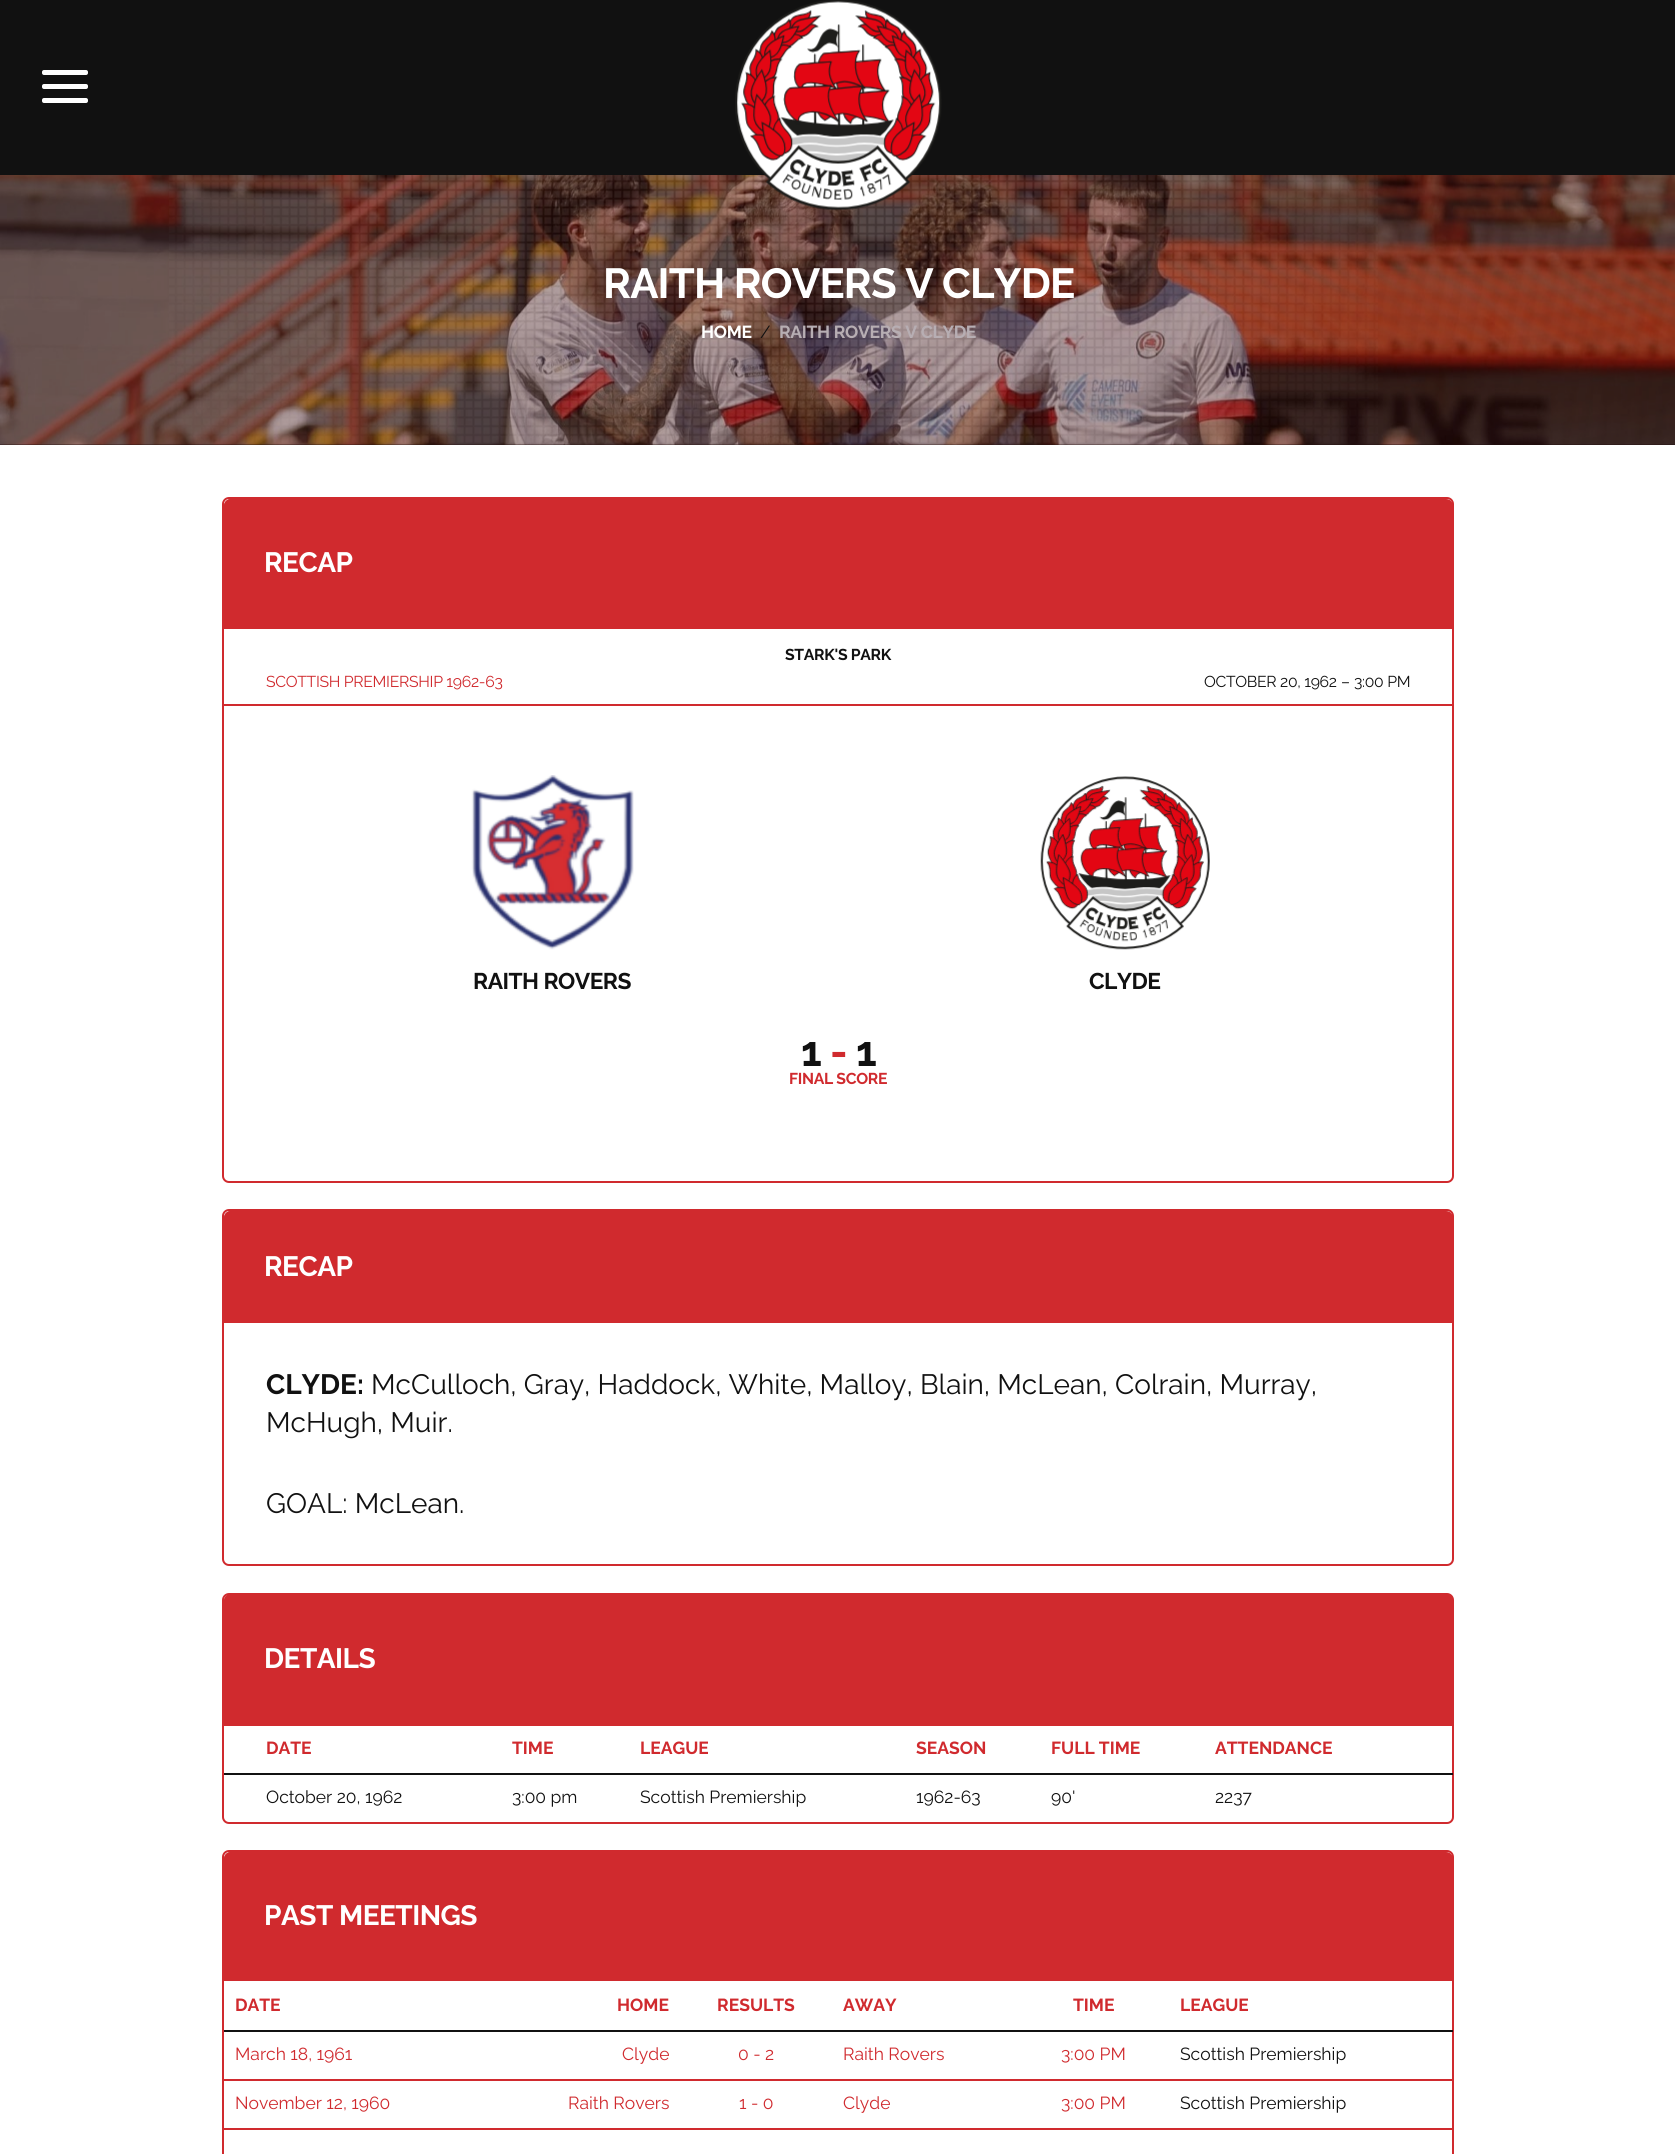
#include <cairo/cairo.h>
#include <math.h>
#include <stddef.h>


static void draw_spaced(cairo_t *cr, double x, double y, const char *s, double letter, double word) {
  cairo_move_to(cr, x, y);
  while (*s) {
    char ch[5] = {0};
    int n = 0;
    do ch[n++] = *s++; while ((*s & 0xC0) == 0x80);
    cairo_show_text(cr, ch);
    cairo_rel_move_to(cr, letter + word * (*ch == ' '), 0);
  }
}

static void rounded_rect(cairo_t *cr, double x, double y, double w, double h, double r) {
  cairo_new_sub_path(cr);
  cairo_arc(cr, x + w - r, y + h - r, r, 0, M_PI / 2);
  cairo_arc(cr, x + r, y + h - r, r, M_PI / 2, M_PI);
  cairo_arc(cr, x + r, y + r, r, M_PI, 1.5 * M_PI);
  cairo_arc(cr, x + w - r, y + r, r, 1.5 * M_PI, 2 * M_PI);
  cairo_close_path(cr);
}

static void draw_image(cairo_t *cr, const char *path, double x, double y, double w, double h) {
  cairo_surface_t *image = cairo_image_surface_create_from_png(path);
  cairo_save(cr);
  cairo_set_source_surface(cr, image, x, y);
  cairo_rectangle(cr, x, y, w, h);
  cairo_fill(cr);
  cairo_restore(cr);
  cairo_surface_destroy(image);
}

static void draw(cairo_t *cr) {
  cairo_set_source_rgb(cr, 1, 1, 1);
  cairo_paint(cr);
  cairo_set_source_rgb(cr, 17 / 255.0, 17 / 255.0, 17 / 255.0);
  cairo_rectangle(cr, 0, 0, 1675, 175);
  cairo_fill(cr);
  cairo_set_source_rgb(cr, 1, 1, 1);
  rounded_rect(cr, 42, 70, 46, 5, 2);
  cairo_fill(cr);
  rounded_rect(cr, 42, 84, 46, 5, 2);
  cairo_fill(cr);
  rounded_rect(cr, 42, 98, 46, 5, 2);
  cairo_fill(cr);
  cairo_set_source_rgb(cr, 31 / 255.0, 12 / 255.0, 12 / 255.0);
  cairo_rectangle(cr, 0, 444, 1675, 1);
  cairo_fill(cr);
  draw_image(cr, "images/2.png", 0, 175, 1675, 270);
  draw_image(cr, "images/3.png", 169, 175, 1209, 269);
  draw_image(cr, "images/1.png", 735, 0, 207, 211);
  rounded_rect(cr, 223, 498, 1230, 684, 6);
  cairo_set_source_rgb(cr, 208 / 255.0, 42 / 255.0, 46 / 255.0);
  cairo_stroke(cr);
  cairo_new_path(cr);
  cairo_move_to(cr, 231, 499);
  cairo_line_to(cr, 1446, 499);
  cairo_curve_to(cr, 1450, 499, 1453, 502, 1453, 506);
  cairo_line_to(cr, 1453, 628);
  cairo_line_to(cr, 224, 628);
  cairo_line_to(cr, 224, 506);
  cairo_curve_to(cr, 224, 502, 227, 499, 231, 499);
  cairo_close_path(cr);
  cairo_fill(cr);
  cairo_rectangle(cr, 224, 628, 1229, 1);
  cairo_fill(cr);
  cairo_new_path(cr);
  cairo_move_to(cr, 231, 499);
  cairo_line_to(cr, 235, 499);
  cairo_line_to(cr, 235, 627);
  cairo_line_to(cr, 224, 627);
  cairo_line_to(cr, 224, 506);
  cairo_curve_to(cr, 224, 502, 227, 499, 231, 499);
  cairo_close_path(cr);
  cairo_fill(cr);
  cairo_rectangle(cr, 224, 704, 1229, 2);
  cairo_fill(cr);
  draw_image(cr, "images/4.png", 471, 775, 163, 175);
  draw_image(cr, "images/5.png", 1040, 776, 170, 174);
  rounded_rect(cr, 223, 1210, 1230, 355, 6);
  cairo_stroke(cr);
  cairo_new_path(cr);
  cairo_move_to(cr, 231, 1211);
  cairo_line_to(cr, 1446, 1211);
  cairo_curve_to(cr, 1450, 1211, 1453, 1214, 1453, 1218);
  cairo_line_to(cr, 1453, 1323);
  cairo_line_to(cr, 224, 1323);
  cairo_line_to(cr, 224, 1218);
  cairo_curve_to(cr, 224, 1214, 227, 1211, 231, 1211);
  cairo_close_path(cr);
  cairo_fill(cr);
  cairo_new_path(cr);
  cairo_move_to(cr, 231, 1211);
  cairo_line_to(cr, 235, 1211);
  cairo_line_to(cr, 235, 1321);
  cairo_line_to(cr, 224, 1321);
  cairo_line_to(cr, 224, 1218);
  cairo_curve_to(cr, 224, 1214, 227, 1211, 231, 1211);
  cairo_close_path(cr);
  cairo_fill(cr);
  rounded_rect(cr, 223, 1594, 1230, 229, 6);
  cairo_stroke(cr);
  cairo_new_path(cr);
  cairo_move_to(cr, 231, 1594);
  cairo_line_to(cr, 1446, 1594);
  cairo_curve_to(cr, 1450, 1594, 1453, 1597, 1453, 1601);
  cairo_line_to(cr, 1453, 1726);
  cairo_line_to(cr, 224, 1726);
  cairo_line_to(cr, 224, 1601);
  cairo_curve_to(cr, 224, 1597, 227, 1594, 231, 1594);
  cairo_close_path(cr);
  cairo_fill(cr);
  cairo_new_path(cr);
  cairo_move_to(cr, 231, 1594);
  cairo_line_to(cr, 235, 1594);
  cairo_line_to(cr, 235, 1724);
  cairo_line_to(cr, 224, 1724);
  cairo_line_to(cr, 224, 1601);
  cairo_curve_to(cr, 224, 1597, 227, 1594, 231, 1594);
  cairo_close_path(cr);
  cairo_fill(cr);
  cairo_set_source_rgb(cr, 17 / 255.0, 17 / 255.0, 17 / 255.0);
  cairo_rectangle(cr, 224, 1773, 1229, 2);
  cairo_fill(cr);
  rounded_rect(cr, 223, 1851, 1230, 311, 6);
  cairo_set_source_rgb(cr, 208 / 255.0, 42 / 255.0, 46 / 255.0);
  cairo_stroke(cr);
  cairo_new_path(cr);
  cairo_move_to(cr, 231, 1852);
  cairo_line_to(cr, 1446, 1852);
  cairo_curve_to(cr, 1450, 1852, 1453, 1855, 1453, 1859);
  cairo_line_to(cr, 1453, 1981);
  cairo_line_to(cr, 224, 1981);
  cairo_line_to(cr, 224, 1859);
  cairo_curve_to(cr, 224, 1855, 227, 1852, 231, 1852);
  cairo_close_path(cr);
  cairo_fill(cr);
  cairo_new_path(cr);
  cairo_move_to(cr, 231, 1852);
  cairo_line_to(cr, 235, 1852);
  cairo_line_to(cr, 235, 1979);
  cairo_line_to(cr, 224, 1979);
  cairo_line_to(cr, 224, 1859);
  cairo_curve_to(cr, 224, 1855, 227, 1852, 231, 1852);
  cairo_close_path(cr);
  cairo_fill(cr);
  cairo_set_source_rgb(cr, 17 / 255.0, 17 / 255.0, 17 / 255.0);
  cairo_rectangle(cr, 224, 2030, 1229, 2);
  cairo_fill(cr);
  cairo_set_source_rgb(cr, 208 / 255.0, 42 / 255.0, 46 / 255.0);
  cairo_rectangle(cr, 224, 2079, 1229, 2);
  cairo_fill(cr);
  cairo_rectangle(cr, 224, 2128, 1229, 2);
  cairo_fill(cr);
  cairo_select_font_face(cr, "Raleway", CAIRO_FONT_SLANT_NORMAL, CAIRO_FONT_WEIGHT_BOLD);
  cairo_set_font_size(cr, 42);
  cairo_set_source_rgb(cr, 1, 1, 1);
  draw_spaced(cr, 603, 298, "RAITH ROVERS V CLYDE", -0.8, 0);
  cairo_set_font_size(cr, 17.5);
  draw_spaced(cr, 701, 338, "HOME", -0.3, 0);
  cairo_select_font_face(cr, "Raleway", CAIRO_FONT_SLANT_NORMAL, CAIRO_FONT_WEIGHT_NORMAL);
  cairo_set_source_rgb(cr, 17 / 255.0, 17 / 255.0, 17 / 255.0);
  draw_spaced(cr, 760, 338, "/", -0.3, 0);
  cairo_select_font_face(cr, "Raleway", CAIRO_FONT_SLANT_NORMAL, CAIRO_FONT_WEIGHT_BOLD);
  cairo_set_source_rgb(cr, 183 / 255.0, 174 / 255.0, 179 / 255.0);
  draw_spaced(cr, 779, 338, "RAITH ROVERS V CLYDE", -0.3, 0);
  cairo_set_font_size(cr, 28);
  cairo_set_source_rgb(cr, 1, 1, 1);
  draw_spaced(cr, 264, 572, "RECAP", -0.5, 0);
  cairo_set_font_size(cr, 15.75);
  cairo_set_source_rgb(cr, 17 / 255.0, 17 / 255.0, 17 / 255.0);
  draw_spaced(cr, 785, 660, "STARK'S PARK", -0.3, 0);
  cairo_select_font_face(cr, "Raleway", CAIRO_FONT_SLANT_NORMAL, CAIRO_FONT_WEIGHT_NORMAL);
  cairo_set_source_rgb(cr, 208 / 255.0, 42 / 255.0, 46 / 255.0);
  draw_spaced(cr, 266, 687, "SCOTTISH PREMIERSHIP 1962-63", -0.3, 0);
  cairo_set_source_rgb(cr, 17 / 255.0, 17 / 255.0, 17 / 255.0);
  draw_spaced(cr, 1204, 687, "OCTOBER 20, 1962", -0.3, 0);
  draw_spaced(cr, 1341, 687, "–", -0.3, 0);
  draw_spaced(cr, 1354, 687, "3:00 PM", -0.3, 0);
  cairo_select_font_face(cr, "Raleway", CAIRO_FONT_SLANT_NORMAL, CAIRO_FONT_WEIGHT_BOLD);
  cairo_set_font_size(cr, 22.75);
  draw_spaced(cr, 473, 989, "RAITH ROVERS", -0.5, 0);
  draw_spaced(cr, 1089, 989, "CLYDE", -0.5, 0);
  cairo_set_font_size(cr, 42);
  draw_spaced(cr, 801, 1066, "1", -0.8, 0);
  cairo_set_source_rgb(cr, 208 / 255.0, 42 / 255.0, 46 / 255.0);
  draw_spaced(cr, 830, 1066, "-", -0.8, 0);
  cairo_set_source_rgb(cr, 17 / 255.0, 17 / 255.0, 17 / 255.0);
  draw_spaced(cr, 856, 1066, "1", -0.8, 0);
  cairo_set_font_size(cr, 15.75);
  cairo_set_source_rgb(cr, 208 / 255.0, 42 / 255.0, 46 / 255.0);
  draw_spaced(cr, 789, 1084, "FINAL SCORE", -0.3, 0);
  cairo_set_font_size(cr, 28);
  cairo_set_source_rgb(cr, 1, 1, 1);
  draw_spaced(cr, 264, 1276, "RECAP", -0.5, 0);
  cairo_set_source_rgb(cr, 17 / 255.0, 17 / 255.0, 17 / 255.0);
  cairo_move_to(cr, 266, 1394);
  cairo_show_text(cr, "CLYDE:");
  cairo_select_font_face(cr, "Raleway", CAIRO_FONT_SLANT_NORMAL, CAIRO_FONT_WEIGHT_NORMAL);
  cairo_move_to(cr, 371, 1394);
  cairo_show_text(cr, "McCulloch, Gray, Haddock, White, Malloy, Blain, McLean, Colrain, Murray,");
  cairo_move_to(cr, 266, 1432);
  cairo_show_text(cr, "McHugh, Muir.");
  cairo_move_to(cr, 266, 1513);
  cairo_show_text(cr, "GOAL: McLean.");
  cairo_select_font_face(cr, "Raleway", CAIRO_FONT_SLANT_NORMAL, CAIRO_FONT_WEIGHT_BOLD);
  cairo_set_source_rgb(cr, 1, 1, 1);
  draw_spaced(cr, 264, 1668, "DETAILS", -0.5, 0);
  cairo_set_font_size(cr, 17.5);
  cairo_set_source_rgb(cr, 208 / 255.0, 42 / 255.0, 46 / 255.0);
  cairo_move_to(cr, 266, 1754);
  cairo_show_text(cr, "DATE");
  cairo_move_to(cr, 512, 1754);
  cairo_show_text(cr, "TIME");
  cairo_move_to(cr, 640, 1754);
  cairo_show_text(cr, "LEAGUE");
  cairo_move_to(cr, 916, 1754);
  cairo_show_text(cr, "SEASON");
  cairo_move_to(cr, 1051, 1754);
  cairo_show_text(cr, "FULL TIME");
  cairo_move_to(cr, 1215, 1754);
  cairo_show_text(cr, "ATTENDANCE");
  cairo_select_font_face(cr, "Raleway", CAIRO_FONT_SLANT_NORMAL, CAIRO_FONT_WEIGHT_NORMAL);
  cairo_set_source_rgb(cr, 17 / 255.0, 17 / 255.0, 17 / 255.0);
  cairo_move_to(cr, 266, 1803);
  cairo_show_text(cr, "October 20, 1962");
  cairo_move_to(cr, 512, 1803);
  cairo_show_text(cr, "3:00 pm");
  cairo_move_to(cr, 640, 1803);
  cairo_show_text(cr, "Scottish Premiership");
  cairo_move_to(cr, 916, 1803);
  cairo_show_text(cr, "1962-63");
  cairo_move_to(cr, 1051, 1803);
  cairo_show_text(cr, "90'");
  cairo_move_to(cr, 1215, 1803);
  cairo_show_text(cr, "2237");
  cairo_select_font_face(cr, "Raleway", CAIRO_FONT_SLANT_NORMAL, CAIRO_FONT_WEIGHT_BOLD);
  cairo_set_font_size(cr, 28);
  cairo_set_source_rgb(cr, 1, 1, 1);
  draw_spaced(cr, 264, 1925, "PAST MEETINGS", -0.5, 0);
  cairo_set_font_size(cr, 17.5);
  cairo_set_source_rgb(cr, 208 / 255.0, 42 / 255.0, 46 / 255.0);
  cairo_move_to(cr, 235, 2011);
  cairo_show_text(cr, "DATE");
  cairo_move_to(cr, 617, 2011);
  cairo_show_text(cr, "HOME");
  cairo_move_to(cr, 717, 2011);
  cairo_show_text(cr, "RESULTS");
  cairo_move_to(cr, 843, 2011);
  cairo_show_text(cr, "AWAY");
  cairo_move_to(cr, 1073, 2011);
  cairo_show_text(cr, "TIME");
  cairo_move_to(cr, 1180, 2011);
  cairo_show_text(cr, "LEAGUE");
  cairo_select_font_face(cr, "Raleway", CAIRO_FONT_SLANT_NORMAL, CAIRO_FONT_WEIGHT_NORMAL);
  cairo_move_to(cr, 235, 2060);
  cairo_show_text(cr, "March 18, 1961");
  cairo_move_to(cr, 622, 2060);
  cairo_show_text(cr, "Clyde");
  cairo_move_to(cr, 738, 2060);
  cairo_show_text(cr, "0 - 2");
  cairo_move_to(cr, 843, 2060);
  cairo_show_text(cr, "Raith Rovers");
  cairo_move_to(cr, 1061, 2060);
  cairo_show_text(cr, "3:00 PM");
  cairo_set_source_rgb(cr, 17 / 255.0, 17 / 255.0, 17 / 255.0);
  cairo_move_to(cr, 1180, 2060);
  cairo_show_text(cr, "Scottish Premiership");
  cairo_set_source_rgb(cr, 208 / 255.0, 42 / 255.0, 46 / 255.0);
  cairo_move_to(cr, 235, 2109);
  cairo_show_text(cr, "November 12, 1960");
  cairo_move_to(cr, 568, 2109);
  cairo_show_text(cr, "Raith Rovers");
  cairo_move_to(cr, 739, 2109);
  cairo_show_text(cr, "1 - 0");
  cairo_move_to(cr, 843, 2109);
  cairo_show_text(cr, "Clyde");
  cairo_move_to(cr, 1061, 2109);
  cairo_show_text(cr, "3:00 PM");
  cairo_set_source_rgb(cr, 17 / 255.0, 17 / 255.0, 17 / 255.0);
  cairo_move_to(cr, 1180, 2109);
  cairo_show_text(cr, "Scottish Premiership");
}

int main(void) {
  cairo_surface_t *surface = cairo_image_surface_create(CAIRO_FORMAT_RGB24, 1675, 2154);
  cairo_t *cr = cairo_create(surface);
  cairo_font_options_t *options = cairo_font_options_create();
  cairo_font_options_set_hint_metrics(options, CAIRO_HINT_METRICS_OFF);
  cairo_font_options_set_hint_style(options, CAIRO_HINT_STYLE_NONE);
  cairo_set_font_options(cr, options);
  cairo_set_miter_limit(cr, 4);
  draw(cr);
  cairo_surface_write_to_png(surface, "out.png");
  cairo_font_options_destroy(options);
  cairo_destroy(cr);
  cairo_surface_destroy(surface);
  return 0;
}
